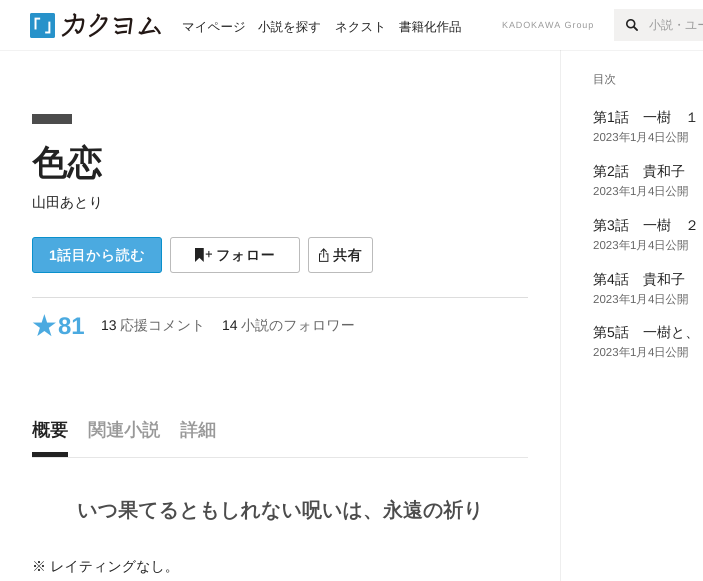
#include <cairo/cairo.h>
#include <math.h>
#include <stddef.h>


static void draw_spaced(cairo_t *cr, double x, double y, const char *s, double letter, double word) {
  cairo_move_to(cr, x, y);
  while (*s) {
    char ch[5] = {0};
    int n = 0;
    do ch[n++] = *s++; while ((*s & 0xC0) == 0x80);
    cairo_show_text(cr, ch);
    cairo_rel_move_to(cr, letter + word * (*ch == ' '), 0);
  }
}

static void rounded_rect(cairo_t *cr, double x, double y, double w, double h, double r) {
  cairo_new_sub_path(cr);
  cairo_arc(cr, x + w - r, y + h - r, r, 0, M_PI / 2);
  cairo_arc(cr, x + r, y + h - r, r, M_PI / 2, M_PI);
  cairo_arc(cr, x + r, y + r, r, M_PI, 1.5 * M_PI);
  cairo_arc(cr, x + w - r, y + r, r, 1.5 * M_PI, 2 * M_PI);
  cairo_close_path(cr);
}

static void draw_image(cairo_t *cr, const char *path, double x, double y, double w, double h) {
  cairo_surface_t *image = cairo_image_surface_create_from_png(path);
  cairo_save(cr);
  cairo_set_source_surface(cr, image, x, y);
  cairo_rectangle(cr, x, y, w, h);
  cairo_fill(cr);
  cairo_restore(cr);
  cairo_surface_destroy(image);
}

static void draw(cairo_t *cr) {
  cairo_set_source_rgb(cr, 1, 1, 1);
  cairo_paint(cr);
  cairo_set_source_rgb(cr, 242 / 255.0, 242 / 255.0, 242 / 255.0);
  cairo_rectangle(cr, 0, 50, 703, 1);
  cairo_fill(cr);
  draw_image(cr, "images/1.png", 30, 13, 131, 25);
  cairo_set_source_rgb(cr, 242 / 255.0, 241 / 255.0, 240 / 255.0);
  cairo_rectangle(cr, 614, 9, 89, 32);
  cairo_fill(cr);
  draw_image(cr, "images/2.png", 626, 19, 12, 12);
  cairo_set_source_rgb(cr, 76 / 255.0, 76 / 255.0, 76 / 255.0);
  cairo_rectangle(cr, 32, 114, 40, 10);
  cairo_fill(cr);
  cairo_set_source_rgb(cr, 75 / 255.0, 170 / 255.0, 224 / 255.0);
  rounded_rect(cr, 32.5, 237.5, 129, 35, 2.5);
  cairo_fill_preserve(cr);
  cairo_set_source_rgb(cr, 9 / 255.0, 144 / 255.0, 204 / 255.0);
  cairo_set_line_width(cr, 1);
  cairo_stroke(cr);
  rounded_rect(cr, 170.5, 237.5, 129, 35, 2.5);
  cairo_set_source_rgb(cr, 187 / 255.0, 187 / 255.0, 187 / 255.0);
  cairo_stroke(cr);
  draw_image(cr, "images/3.png", 195, 248, 17, 14);
  rounded_rect(cr, 308.5, 237.5, 64, 35, 2.5);
  cairo_stroke(cr);
  draw_image(cr, "images/4.png", 319, 248, 10, 14);
  cairo_set_source_rgb(cr, 221 / 255.0, 221 / 255.0, 221 / 255.0);
  cairo_rectangle(cr, 32, 297, 496, 1);
  cairo_fill(cr);
  cairo_set_source_rgb(cr, 230 / 255.0, 230 / 255.0, 230 / 255.0);
  cairo_rectangle(cr, 32, 457, 496, 1);
  cairo_fill(cr);
  cairo_set_source_rgb(cr, 34 / 255.0, 34 / 255.0, 34 / 255.0);
  cairo_rectangle(cr, 32, 452, 36, 5);
  cairo_fill(cr);
  cairo_set_source_rgb(cr, 238 / 255.0, 238 / 255.0, 238 / 255.0);
  cairo_rectangle(cr, 560, 50, 1, 531);
  cairo_fill(cr);
  cairo_set_source_rgb(cr, 226 / 255.0, 226 / 255.0, 226 / 255.0);
  cairo_rectangle(cr, 560, 50, 1, 1);
  cairo_fill(cr);
  cairo_select_font_face(cr, "WenQuanYi Zen Hei Medium", CAIRO_FONT_SLANT_NORMAL, CAIRO_FONT_WEIGHT_NORMAL);
  cairo_set_font_size(cr, 12.5);
  cairo_set_source_rgb(cr, 34 / 255.0, 34 / 255.0, 34 / 255.0);
  cairo_move_to(cr, 182, 31);
  cairo_show_text(cr, "マイページ");
  cairo_move_to(cr, 258, 31);
  cairo_show_text(cr, "小説を探す");
  cairo_move_to(cr, 335, 31);
  cairo_show_text(cr, "ネクスト");
  cairo_move_to(cr, 399, 31);
  cairo_show_text(cr, "書籍化作品");
  cairo_select_font_face(cr, "Liberation Sans", CAIRO_FONT_SLANT_NORMAL, CAIRO_FONT_WEIGHT_NORMAL);
  cairo_set_font_size(cr, 9);
  cairo_set_source_rgb(cr, 153 / 255.0, 153 / 255.0, 153 / 255.0);
  draw_spaced(cr, 502, 28, "KADOKAWA Group", 0.9, 0);
  cairo_select_font_face(cr, "WenQuanYi Zen Hei Medium", CAIRO_FONT_SLANT_NORMAL, CAIRO_FONT_WEIGHT_NORMAL);
  cairo_set_font_size(cr, 12);
  cairo_move_to(cr, 649, 29);
  cairo_show_text(cr, "小説・ユー");
  cairo_select_font_face(cr, "WenQuanYi Zen Hei", CAIRO_FONT_SLANT_NORMAL, CAIRO_FONT_WEIGHT_BOLD);
  cairo_set_font_size(cr, 35);
  cairo_set_source_rgb(cr, 34 / 255.0, 34 / 255.0, 34 / 255.0);
  cairo_move_to(cr, 32, 175);
  cairo_show_text(cr, "色恋");
  cairo_select_font_face(cr, "WenQuanYi Zen Hei Medium", CAIRO_FONT_SLANT_NORMAL, CAIRO_FONT_WEIGHT_NORMAL);
  cairo_set_font_size(cr, 14);
  cairo_move_to(cr, 32, 207);
  cairo_show_text(cr, "山田あとり");
  cairo_select_font_face(cr, "Liberation Sans", CAIRO_FONT_SLANT_NORMAL, CAIRO_FONT_WEIGHT_BOLD);
  cairo_set_source_rgb(cr, 1, 1, 1);
  draw_spaced(cr, 49, 260, "1", 0.5, 0);
  cairo_select_font_face(cr, "WenQuanYi Zen Hei", CAIRO_FONT_SLANT_NORMAL, CAIRO_FONT_WEIGHT_BOLD);
  draw_spaced(cr, 57, 260, "話目から読む", 0.5, 0);
  cairo_set_source_rgb(cr, 34 / 255.0, 34 / 255.0, 34 / 255.0);
  draw_spaced(cr, 216, 260, "フォロー", 0.5, 0);
  draw_spaced(cr, 333, 260, "共有", 0.5, 0);
  cairo_set_font_size(cr, 24);
  cairo_set_source_rgb(cr, 75 / 255.0, 170 / 255.0, 224 / 255.0);
  cairo_move_to(cr, 32, 334);
  cairo_show_text(cr, "★");
  cairo_select_font_face(cr, "Liberation Sans", CAIRO_FONT_SLANT_NORMAL, CAIRO_FONT_WEIGHT_BOLD);
  cairo_move_to(cr, 58, 334);
  cairo_show_text(cr, "81");
  cairo_select_font_face(cr, "Liberation Sans", CAIRO_FONT_SLANT_NORMAL, CAIRO_FONT_WEIGHT_NORMAL);
  cairo_set_font_size(cr, 14);
  cairo_set_source_rgb(cr, 34 / 255.0, 34 / 255.0, 34 / 255.0);
  cairo_move_to(cr, 101, 330);
  cairo_show_text(cr, "13");
  cairo_select_font_face(cr, "WenQuanYi Zen Hei Medium", CAIRO_FONT_SLANT_NORMAL, CAIRO_FONT_WEIGHT_NORMAL);
  cairo_set_source_rgb(cr, 102 / 255.0, 102 / 255.0, 102 / 255.0);
  cairo_move_to(cr, 120, 330);
  cairo_show_text(cr, "応援コメント");
  cairo_select_font_face(cr, "Liberation Sans", CAIRO_FONT_SLANT_NORMAL, CAIRO_FONT_WEIGHT_NORMAL);
  cairo_set_source_rgb(cr, 34 / 255.0, 34 / 255.0, 34 / 255.0);
  cairo_move_to(cr, 222, 330);
  cairo_show_text(cr, "14");
  cairo_select_font_face(cr, "WenQuanYi Zen Hei Medium", CAIRO_FONT_SLANT_NORMAL, CAIRO_FONT_WEIGHT_NORMAL);
  cairo_set_source_rgb(cr, 102 / 255.0, 102 / 255.0, 102 / 255.0);
  cairo_move_to(cr, 241, 330);
  cairo_show_text(cr, "小説のフォロワー");
  cairo_select_font_face(cr, "WenQuanYi Zen Hei", CAIRO_FONT_SLANT_NORMAL, CAIRO_FONT_WEIGHT_BOLD);
  cairo_set_font_size(cr, 18);
  cairo_set_source_rgb(cr, 34 / 255.0, 34 / 255.0, 34 / 255.0);
  cairo_move_to(cr, 32, 436);
  cairo_show_text(cr, "概要");
  cairo_set_source_rgb(cr, 153 / 255.0, 153 / 255.0, 153 / 255.0);
  cairo_move_to(cr, 88, 436);
  cairo_show_text(cr, "関連小説");
  cairo_move_to(cr, 180, 436);
  cairo_show_text(cr, "詳細");
  cairo_set_font_size(cr, 20);
  cairo_set_source_rgb(cr, 76 / 255.0, 76 / 255.0, 76 / 255.0);
  cairo_move_to(cr, 77, 517);
  cairo_show_text(cr, "いつ果てるともしれない呪いは、永遠の祈り");
  cairo_select_font_face(cr, "WenQuanYi Zen Hei Medium", CAIRO_FONT_SLANT_NORMAL, CAIRO_FONT_WEIGHT_NORMAL);
  cairo_set_font_size(cr, 14);
  cairo_set_source_rgb(cr, 34 / 255.0, 34 / 255.0, 34 / 255.0);
  cairo_move_to(cr, 32, 571);
  cairo_show_text(cr, "※ レイティングなし。");
  cairo_set_font_size(cr, 11.5);
  cairo_set_source_rgb(cr, 102 / 255.0, 102 / 255.0, 102 / 255.0);
  cairo_move_to(cr, 593, 83);
  cairo_show_text(cr, "目次");
  cairo_set_font_size(cr, 14);
  cairo_set_source_rgb(cr, 34 / 255.0, 34 / 255.0, 34 / 255.0);
  cairo_move_to(cr, 593, 122);
  cairo_show_text(cr, "第");
  cairo_select_font_face(cr, "Liberation Sans", CAIRO_FONT_SLANT_NORMAL, CAIRO_FONT_WEIGHT_NORMAL);
  cairo_move_to(cr, 607, 122);
  cairo_show_text(cr, "1");
  cairo_select_font_face(cr, "WenQuanYi Zen Hei Medium", CAIRO_FONT_SLANT_NORMAL, CAIRO_FONT_WEIGHT_NORMAL);
  cairo_move_to(cr, 615, 122);
  cairo_show_text(cr, "話　一樹　１");
  cairo_select_font_face(cr, "Liberation Sans", CAIRO_FONT_SLANT_NORMAL, CAIRO_FONT_WEIGHT_NORMAL);
  cairo_set_font_size(cr, 11.5);
  cairo_set_source_rgb(cr, 102 / 255.0, 102 / 255.0, 102 / 255.0);
  cairo_move_to(cr, 593, 141);
  cairo_show_text(cr, "2023");
  cairo_select_font_face(cr, "WenQuanYi Zen Hei Medium", CAIRO_FONT_SLANT_NORMAL, CAIRO_FONT_WEIGHT_NORMAL);
  cairo_move_to(cr, 619, 141);
  cairo_show_text(cr, "年");
  cairo_select_font_face(cr, "Liberation Sans", CAIRO_FONT_SLANT_NORMAL, CAIRO_FONT_WEIGHT_NORMAL);
  cairo_move_to(cr, 630, 141);
  cairo_show_text(cr, "1");
  cairo_select_font_face(cr, "WenQuanYi Zen Hei Medium", CAIRO_FONT_SLANT_NORMAL, CAIRO_FONT_WEIGHT_NORMAL);
  cairo_move_to(cr, 636, 141);
  cairo_show_text(cr, "月");
  cairo_select_font_face(cr, "Liberation Sans", CAIRO_FONT_SLANT_NORMAL, CAIRO_FONT_WEIGHT_NORMAL);
  cairo_move_to(cr, 648, 141);
  cairo_show_text(cr, "4");
  cairo_select_font_face(cr, "WenQuanYi Zen Hei Medium", CAIRO_FONT_SLANT_NORMAL, CAIRO_FONT_WEIGHT_NORMAL);
  cairo_move_to(cr, 654, 141);
  cairo_show_text(cr, "日公開");
  cairo_set_font_size(cr, 14);
  cairo_set_source_rgb(cr, 34 / 255.0, 34 / 255.0, 34 / 255.0);
  cairo_move_to(cr, 593, 176);
  cairo_show_text(cr, "第");
  cairo_select_font_face(cr, "Liberation Sans", CAIRO_FONT_SLANT_NORMAL, CAIRO_FONT_WEIGHT_NORMAL);
  cairo_move_to(cr, 607, 176);
  cairo_show_text(cr, "2");
  cairo_select_font_face(cr, "WenQuanYi Zen Hei Medium", CAIRO_FONT_SLANT_NORMAL, CAIRO_FONT_WEIGHT_NORMAL);
  cairo_move_to(cr, 615, 176);
  cairo_show_text(cr, "話　貴和子");
  cairo_select_font_face(cr, "Liberation Sans", CAIRO_FONT_SLANT_NORMAL, CAIRO_FONT_WEIGHT_NORMAL);
  cairo_set_font_size(cr, 11.5);
  cairo_set_source_rgb(cr, 102 / 255.0, 102 / 255.0, 102 / 255.0);
  cairo_move_to(cr, 593, 195);
  cairo_show_text(cr, "2023");
  cairo_select_font_face(cr, "WenQuanYi Zen Hei Medium", CAIRO_FONT_SLANT_NORMAL, CAIRO_FONT_WEIGHT_NORMAL);
  cairo_move_to(cr, 619, 195);
  cairo_show_text(cr, "年");
  cairo_select_font_face(cr, "Liberation Sans", CAIRO_FONT_SLANT_NORMAL, CAIRO_FONT_WEIGHT_NORMAL);
  cairo_move_to(cr, 630, 195);
  cairo_show_text(cr, "1");
  cairo_select_font_face(cr, "WenQuanYi Zen Hei Medium", CAIRO_FONT_SLANT_NORMAL, CAIRO_FONT_WEIGHT_NORMAL);
  cairo_move_to(cr, 636, 195);
  cairo_show_text(cr, "月");
  cairo_select_font_face(cr, "Liberation Sans", CAIRO_FONT_SLANT_NORMAL, CAIRO_FONT_WEIGHT_NORMAL);
  cairo_move_to(cr, 648, 195);
  cairo_show_text(cr, "4");
  cairo_select_font_face(cr, "WenQuanYi Zen Hei Medium", CAIRO_FONT_SLANT_NORMAL, CAIRO_FONT_WEIGHT_NORMAL);
  cairo_move_to(cr, 654, 195);
  cairo_show_text(cr, "日公開");
  cairo_set_font_size(cr, 14);
  cairo_set_source_rgb(cr, 34 / 255.0, 34 / 255.0, 34 / 255.0);
  cairo_move_to(cr, 593, 230);
  cairo_show_text(cr, "第");
  cairo_select_font_face(cr, "Liberation Sans", CAIRO_FONT_SLANT_NORMAL, CAIRO_FONT_WEIGHT_NORMAL);
  cairo_move_to(cr, 607, 230);
  cairo_show_text(cr, "3");
  cairo_select_font_face(cr, "WenQuanYi Zen Hei Medium", CAIRO_FONT_SLANT_NORMAL, CAIRO_FONT_WEIGHT_NORMAL);
  cairo_move_to(cr, 615, 230);
  cairo_show_text(cr, "話　一樹　２");
  cairo_select_font_face(cr, "Liberation Sans", CAIRO_FONT_SLANT_NORMAL, CAIRO_FONT_WEIGHT_NORMAL);
  cairo_set_font_size(cr, 11.5);
  cairo_set_source_rgb(cr, 102 / 255.0, 102 / 255.0, 102 / 255.0);
  cairo_move_to(cr, 593, 249);
  cairo_show_text(cr, "2023");
  cairo_select_font_face(cr, "WenQuanYi Zen Hei Medium", CAIRO_FONT_SLANT_NORMAL, CAIRO_FONT_WEIGHT_NORMAL);
  cairo_move_to(cr, 619, 249);
  cairo_show_text(cr, "年");
  cairo_select_font_face(cr, "Liberation Sans", CAIRO_FONT_SLANT_NORMAL, CAIRO_FONT_WEIGHT_NORMAL);
  cairo_move_to(cr, 630, 249);
  cairo_show_text(cr, "1");
  cairo_select_font_face(cr, "WenQuanYi Zen Hei Medium", CAIRO_FONT_SLANT_NORMAL, CAIRO_FONT_WEIGHT_NORMAL);
  cairo_move_to(cr, 636, 249);
  cairo_show_text(cr, "月");
  cairo_select_font_face(cr, "Liberation Sans", CAIRO_FONT_SLANT_NORMAL, CAIRO_FONT_WEIGHT_NORMAL);
  cairo_move_to(cr, 648, 249);
  cairo_show_text(cr, "4");
  cairo_select_font_face(cr, "WenQuanYi Zen Hei Medium", CAIRO_FONT_SLANT_NORMAL, CAIRO_FONT_WEIGHT_NORMAL);
  cairo_move_to(cr, 654, 249);
  cairo_show_text(cr, "日公開");
  cairo_set_font_size(cr, 14);
  cairo_set_source_rgb(cr, 34 / 255.0, 34 / 255.0, 34 / 255.0);
  cairo_move_to(cr, 593, 284);
  cairo_show_text(cr, "第");
  cairo_select_font_face(cr, "Liberation Sans", CAIRO_FONT_SLANT_NORMAL, CAIRO_FONT_WEIGHT_NORMAL);
  cairo_move_to(cr, 607, 284);
  cairo_show_text(cr, "4");
  cairo_select_font_face(cr, "WenQuanYi Zen Hei Medium", CAIRO_FONT_SLANT_NORMAL, CAIRO_FONT_WEIGHT_NORMAL);
  cairo_move_to(cr, 615, 284);
  cairo_show_text(cr, "話　貴和子");
  cairo_select_font_face(cr, "Liberation Sans", CAIRO_FONT_SLANT_NORMAL, CAIRO_FONT_WEIGHT_NORMAL);
  cairo_set_font_size(cr, 11.5);
  cairo_set_source_rgb(cr, 102 / 255.0, 102 / 255.0, 102 / 255.0);
  cairo_move_to(cr, 593, 303);
  cairo_show_text(cr, "2023");
  cairo_select_font_face(cr, "WenQuanYi Zen Hei Medium", CAIRO_FONT_SLANT_NORMAL, CAIRO_FONT_WEIGHT_NORMAL);
  cairo_move_to(cr, 619, 303);
  cairo_show_text(cr, "年");
  cairo_select_font_face(cr, "Liberation Sans", CAIRO_FONT_SLANT_NORMAL, CAIRO_FONT_WEIGHT_NORMAL);
  cairo_move_to(cr, 630, 303);
  cairo_show_text(cr, "1");
  cairo_select_font_face(cr, "WenQuanYi Zen Hei Medium", CAIRO_FONT_SLANT_NORMAL, CAIRO_FONT_WEIGHT_NORMAL);
  cairo_move_to(cr, 636, 303);
  cairo_show_text(cr, "月");
  cairo_select_font_face(cr, "Liberation Sans", CAIRO_FONT_SLANT_NORMAL, CAIRO_FONT_WEIGHT_NORMAL);
  cairo_move_to(cr, 648, 303);
  cairo_show_text(cr, "4");
  cairo_select_font_face(cr, "WenQuanYi Zen Hei Medium", CAIRO_FONT_SLANT_NORMAL, CAIRO_FONT_WEIGHT_NORMAL);
  cairo_move_to(cr, 654, 303);
  cairo_show_text(cr, "日公開");
  cairo_set_font_size(cr, 14);
  cairo_set_source_rgb(cr, 34 / 255.0, 34 / 255.0, 34 / 255.0);
  cairo_move_to(cr, 593, 337);
  cairo_show_text(cr, "第");
  cairo_select_font_face(cr, "Liberation Sans", CAIRO_FONT_SLANT_NORMAL, CAIRO_FONT_WEIGHT_NORMAL);
  cairo_move_to(cr, 607, 337);
  cairo_show_text(cr, "5");
  cairo_select_font_face(cr, "WenQuanYi Zen Hei Medium", CAIRO_FONT_SLANT_NORMAL, CAIRO_FONT_WEIGHT_NORMAL);
  cairo_move_to(cr, 615, 337);
  cairo_show_text(cr, "話　一樹と、");
  cairo_select_font_face(cr, "Liberation Sans", CAIRO_FONT_SLANT_NORMAL, CAIRO_FONT_WEIGHT_NORMAL);
  cairo_set_font_size(cr, 11.5);
  cairo_set_source_rgb(cr, 102 / 255.0, 102 / 255.0, 102 / 255.0);
  cairo_move_to(cr, 593, 356);
  cairo_show_text(cr, "2023");
  cairo_select_font_face(cr, "WenQuanYi Zen Hei Medium", CAIRO_FONT_SLANT_NORMAL, CAIRO_FONT_WEIGHT_NORMAL);
  cairo_move_to(cr, 619, 356);
  cairo_show_text(cr, "年");
  cairo_select_font_face(cr, "Liberation Sans", CAIRO_FONT_SLANT_NORMAL, CAIRO_FONT_WEIGHT_NORMAL);
  cairo_move_to(cr, 630, 356);
  cairo_show_text(cr, "1");
  cairo_select_font_face(cr, "WenQuanYi Zen Hei Medium", CAIRO_FONT_SLANT_NORMAL, CAIRO_FONT_WEIGHT_NORMAL);
  cairo_move_to(cr, 636, 356);
  cairo_show_text(cr, "月");
  cairo_select_font_face(cr, "Liberation Sans", CAIRO_FONT_SLANT_NORMAL, CAIRO_FONT_WEIGHT_NORMAL);
  cairo_move_to(cr, 648, 356);
  cairo_show_text(cr, "4");
  cairo_select_font_face(cr, "WenQuanYi Zen Hei Medium", CAIRO_FONT_SLANT_NORMAL, CAIRO_FONT_WEIGHT_NORMAL);
  cairo_move_to(cr, 654, 356);
  cairo_show_text(cr, "日公開");
}

int main(void) {
  cairo_surface_t *surface = cairo_image_surface_create(CAIRO_FORMAT_RGB24, 703, 581);
  cairo_t *cr = cairo_create(surface);
  cairo_font_options_t *options = cairo_font_options_create();
  cairo_font_options_set_hint_metrics(options, CAIRO_HINT_METRICS_OFF);
  cairo_font_options_set_hint_style(options, CAIRO_HINT_STYLE_NONE);
  cairo_set_font_options(cr, options);
  cairo_set_miter_limit(cr, 4);
  draw(cr);
  cairo_surface_write_to_png(surface, "out.png");
  cairo_font_options_destroy(options);
  cairo_destroy(cr);
  cairo_surface_destroy(surface);
  return 0;
}
